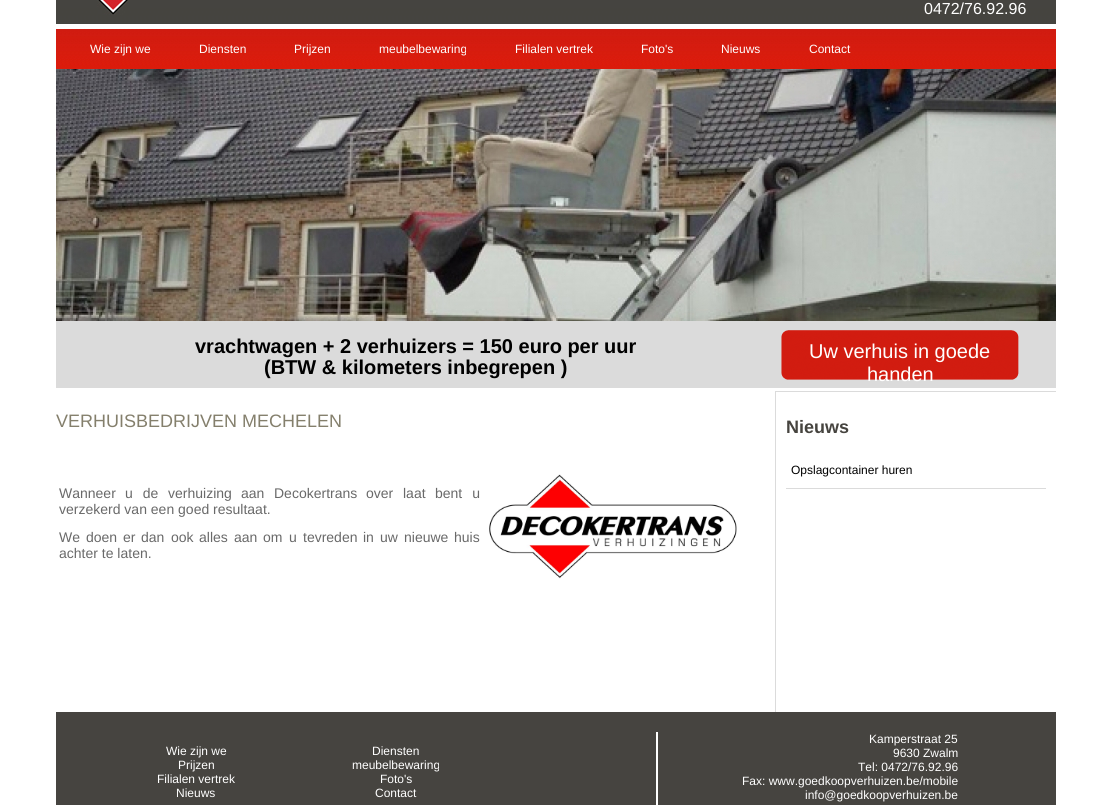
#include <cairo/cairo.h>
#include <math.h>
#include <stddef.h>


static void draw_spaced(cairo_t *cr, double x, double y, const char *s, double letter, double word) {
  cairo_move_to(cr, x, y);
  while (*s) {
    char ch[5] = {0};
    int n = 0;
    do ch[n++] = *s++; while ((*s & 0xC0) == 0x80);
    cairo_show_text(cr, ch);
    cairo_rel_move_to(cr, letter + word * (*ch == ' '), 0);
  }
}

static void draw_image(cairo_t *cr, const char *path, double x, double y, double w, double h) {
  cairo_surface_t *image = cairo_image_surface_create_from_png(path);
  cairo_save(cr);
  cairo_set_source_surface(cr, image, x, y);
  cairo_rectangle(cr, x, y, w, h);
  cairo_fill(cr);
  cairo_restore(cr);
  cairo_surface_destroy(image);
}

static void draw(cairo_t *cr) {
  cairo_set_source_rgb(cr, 1, 1, 1);
  cairo_paint(cr);
  draw_image(cr, "images/1.png", 56, 0, 1000, 388);
  draw_image(cr, "images/2.png", 97, 0, 32, 15);
  draw_image(cr, "images/3.png", 56, 69, 1000, 252);
  draw_image(cr, "images/4.png", 781, 330, 238, 50);
  draw_image(cr, "images/5.png", 489, 474, 248, 105);
  cairo_set_source_rgb(cr, 219 / 255.0, 219 / 255.0, 219 / 255.0);
  cairo_rectangle(cr, 775, 391, 281, 1);
  cairo_fill(cr);
  cairo_rectangle(cr, 775, 391, 1, 321);
  cairo_fill(cr);
  cairo_rectangle(cr, 786, 488, 260, 1);
  cairo_fill(cr);
  cairo_set_source_rgb(cr, 70 / 255.0, 68 / 255.0, 64 / 255.0);
  cairo_rectangle(cr, 56, 712, 1000, 93);
  cairo_fill(cr);
  cairo_set_source_rgb(cr, 1, 1, 1);
  cairo_rectangle(cr, 656, 732, 2, 73);
  cairo_fill(cr);
  cairo_select_font_face(cr, "Liberation Sans", CAIRO_FONT_SLANT_NORMAL, CAIRO_FONT_WEIGHT_NORMAL);
  cairo_set_font_size(cr, 16);
  cairo_move_to(cr, 924, 14);
  cairo_show_text(cr, "0472/76.92.96");
  cairo_set_font_size(cr, 12);
  cairo_move_to(cr, 90, 53);
  cairo_show_text(cr, "Wie zijn we");
  cairo_move_to(cr, 199, 53);
  cairo_show_text(cr, "Diensten");
  cairo_move_to(cr, 294, 53);
  cairo_show_text(cr, "Prijzen");
  cairo_move_to(cr, 379, 53);
  cairo_show_text(cr, "meubelbewaring");
  cairo_move_to(cr, 515, 53);
  cairo_show_text(cr, "Filialen vertrek");
  cairo_move_to(cr, 641, 53);
  cairo_show_text(cr, "Foto's");
  cairo_move_to(cr, 721, 53);
  cairo_show_text(cr, "Nieuws");
  cairo_move_to(cr, 809, 53);
  cairo_show_text(cr, "Contact");
  cairo_select_font_face(cr, "Liberation Sans", CAIRO_FONT_SLANT_NORMAL, CAIRO_FONT_WEIGHT_BOLD);
  cairo_set_font_size(cr, 20);
  cairo_set_source_rgb(cr, 0, 0, 0);
  cairo_move_to(cr, 195, 353);
  cairo_show_text(cr, "vrachtwagen + 2 verhuizers = 150 euro per uur");
  cairo_move_to(cr, 264, 374);
  cairo_show_text(cr, "(BTW & kilometers inbegrepen )");
  cairo_select_font_face(cr, "Liberation Sans", CAIRO_FONT_SLANT_NORMAL, CAIRO_FONT_WEIGHT_NORMAL);
  cairo_set_source_rgb(cr, 1, 1, 1);
  cairo_move_to(cr, 809, 358);
  cairo_show_text(cr, "Uw verhuis in goede");
  cairo_move_to(cr, 867, 381);
  cairo_show_text(cr, "handen");
  cairo_set_font_size(cr, 18);
  cairo_set_source_rgb(cr, 132 / 255.0, 127 / 255.0, 108 / 255.0);
  cairo_move_to(cr, 56, 427);
  cairo_show_text(cr, "VERHUISBEDRIJVEN MECHELEN");
  cairo_set_font_size(cr, 14);
  cairo_set_source_rgb(cr, 105 / 255.0, 105 / 255.0, 105 / 255.0);
  cairo_move_to(cr, 59, 498);
  cairo_show_text(cr, "Wanneer");
  draw_spaced(cr, 125, 498, "u de", 0, 6);
  cairo_move_to(cr, 168, 498);
  cairo_show_text(cr, "verhuizing");
  cairo_move_to(cr, 241, 498);
  cairo_show_text(cr, "aan");
  cairo_move_to(cr, 274, 498);
  cairo_show_text(cr, "Decokertrans");
  cairo_move_to(cr, 366, 498);
  cairo_show_text(cr, "over");
  cairo_move_to(cr, 403, 498);
  cairo_show_text(cr, "laat");
  draw_spaced(cr, 435, 498, "bent u", 0, 6);
  cairo_move_to(cr, 59, 514);
  cairo_show_text(cr, "verzekerd van een goed resultaat.");
  cairo_move_to(cr, 59, 542);
  cairo_show_text(cr, "We");
  cairo_move_to(cr, 86, 542);
  cairo_show_text(cr, "doen");
  cairo_move_to(cr, 123, 542);
  cairo_show_text(cr, "er");
  cairo_move_to(cr, 141, 542);
  cairo_show_text(cr, "dan");
  cairo_move_to(cr, 171, 542);
  cairo_show_text(cr, "ook");
  cairo_move_to(cr, 199, 542);
  cairo_show_text(cr, "alles");
  cairo_move_to(cr, 234, 542);
  cairo_show_text(cr, "aan");
  cairo_move_to(cr, 263, 542);
  cairo_show_text(cr, "om");
  cairo_move_to(cr, 289, 542);
  cairo_show_text(cr, "u");
  cairo_move_to(cr, 303, 542);
  cairo_show_text(cr, "tevreden");
  cairo_move_to(cr, 363, 542);
  cairo_show_text(cr, "in");
  cairo_move_to(cr, 380, 542);
  cairo_show_text(cr, "uw");
  cairo_move_to(cr, 404, 542);
  cairo_show_text(cr, "nieuwe");
  cairo_move_to(cr, 454, 542);
  cairo_show_text(cr, "huis");
  cairo_move_to(cr, 59, 558);
  cairo_show_text(cr, "achter te laten.");
  cairo_select_font_face(cr, "Liberation Sans", CAIRO_FONT_SLANT_NORMAL, CAIRO_FONT_WEIGHT_BOLD);
  cairo_set_font_size(cr, 18);
  cairo_set_source_rgb(cr, 70 / 255.0, 68 / 255.0, 63 / 255.0);
  cairo_move_to(cr, 786, 433);
  cairo_show_text(cr, "Nieuws");
  cairo_select_font_face(cr, "Liberation Sans", CAIRO_FONT_SLANT_NORMAL, CAIRO_FONT_WEIGHT_NORMAL);
  cairo_set_font_size(cr, 12);
  cairo_set_source_rgb(cr, 0, 0, 0);
  cairo_move_to(cr, 791, 474);
  cairo_show_text(cr, "Opslagcontainer huren");
  cairo_set_source_rgb(cr, 1, 1, 1);
  cairo_move_to(cr, 166, 755);
  cairo_show_text(cr, "Wie zijn we");
  cairo_move_to(cr, 372, 755);
  cairo_show_text(cr, "Diensten");
  cairo_move_to(cr, 178, 769);
  cairo_show_text(cr, "Prijzen");
  cairo_move_to(cr, 352, 769);
  cairo_show_text(cr, "meubelbewaring");
  cairo_move_to(cr, 157, 783);
  cairo_show_text(cr, "Filialen vertrek");
  cairo_move_to(cr, 380, 783);
  cairo_show_text(cr, "Foto's");
  cairo_move_to(cr, 176, 797);
  cairo_show_text(cr, "Nieuws");
  cairo_move_to(cr, 375, 797);
  cairo_show_text(cr, "Contact");
  cairo_move_to(cr, 869, 743);
  cairo_show_text(cr, "Kamperstraat 25");
  cairo_move_to(cr, 893, 757);
  cairo_show_text(cr, "9630 Zwalm");
  cairo_move_to(cr, 858, 771);
  cairo_show_text(cr, "Tel: 0472/76.92.96");
  cairo_move_to(cr, 742, 785);
  cairo_show_text(cr, "Fax: www.goedkoopverhuizen.be/mobile");
  cairo_move_to(cr, 805, 799);
  cairo_show_text(cr, "info@goedkoopverhuizen.be");
}

int main(void) {
  cairo_surface_t *surface = cairo_image_surface_create(CAIRO_FORMAT_RGB24, 1112, 805);
  cairo_t *cr = cairo_create(surface);
  cairo_font_options_t *options = cairo_font_options_create();
  cairo_font_options_set_hint_metrics(options, CAIRO_HINT_METRICS_OFF);
  cairo_font_options_set_hint_style(options, CAIRO_HINT_STYLE_NONE);
  cairo_set_font_options(cr, options);
  cairo_set_miter_limit(cr, 4);
  draw(cr);
  cairo_surface_write_to_png(surface, "out.png");
  cairo_font_options_destroy(options);
  cairo_destroy(cr);
  cairo_surface_destroy(surface);
  return 0;
}
